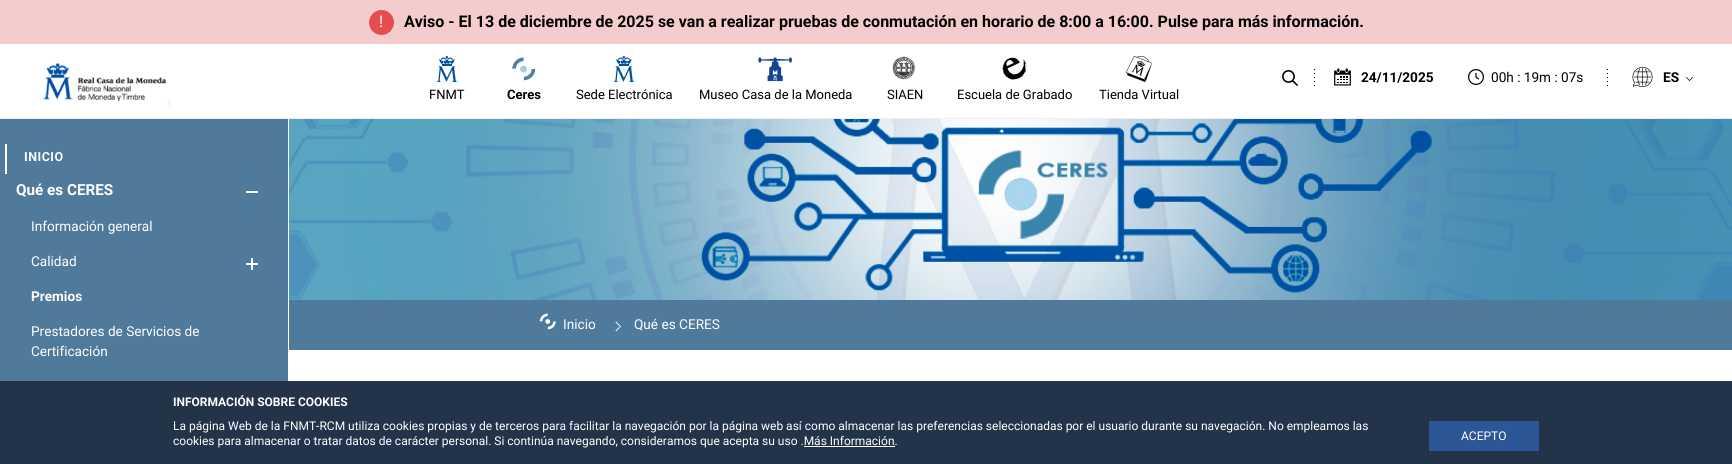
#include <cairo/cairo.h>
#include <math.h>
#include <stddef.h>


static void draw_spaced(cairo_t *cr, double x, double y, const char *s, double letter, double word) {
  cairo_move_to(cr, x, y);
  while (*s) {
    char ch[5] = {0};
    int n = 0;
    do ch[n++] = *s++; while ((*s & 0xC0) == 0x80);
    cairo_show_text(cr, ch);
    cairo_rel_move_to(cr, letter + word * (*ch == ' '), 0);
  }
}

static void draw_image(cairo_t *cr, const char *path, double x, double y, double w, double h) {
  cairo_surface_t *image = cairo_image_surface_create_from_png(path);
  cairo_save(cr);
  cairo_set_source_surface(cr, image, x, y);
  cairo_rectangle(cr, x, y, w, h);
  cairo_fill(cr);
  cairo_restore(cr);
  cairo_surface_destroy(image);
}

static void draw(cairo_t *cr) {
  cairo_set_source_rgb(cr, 1, 1, 1);
  cairo_paint(cr);
  cairo_set_source_rgb(cr, 244 / 255.0, 204 / 255.0, 204 / 255.0);
  cairo_rectangle(cr, 0, 0, 1732, 44);
  cairo_fill(cr);
  cairo_set_source_rgb(cr, 230 / 255.0, 78 / 255.0, 78 / 255.0);
  cairo_arc(cr, 381.5, 22.5, 12.5, 0, 2 * M_PI);
  cairo_fill(cr);
  draw_image(cr, "images/1.png", 43, 63, 127, 43);
  draw_image(cr, "images/2.png", 1282, 70, 16, 16);
  cairo_set_source_rgb(cr, 0, 0, 0);
  cairo_rectangle(cr, 1314, 69, 1, 1);
  cairo_fill(cr);
  cairo_rectangle(cr, 1314, 73, 1, 1);
  cairo_fill(cr);
  cairo_rectangle(cr, 1314, 77, 1, 1);
  cairo_fill(cr);
  cairo_rectangle(cr, 1314, 81, 1, 1);
  cairo_fill(cr);
  cairo_rectangle(cr, 1314, 85, 1, 1);
  cairo_fill(cr);
  draw_image(cr, "images/3.png", 1334, 68, 17, 18);
  draw_image(cr, "images/4.png", 1468, 69, 16, 16);
  cairo_rectangle(cr, 1607, 69, 1, 1);
  cairo_fill(cr);
  cairo_rectangle(cr, 1607, 73, 1, 1);
  cairo_fill(cr);
  cairo_rectangle(cr, 1607, 77, 1, 1);
  cairo_fill(cr);
  cairo_rectangle(cr, 1607, 81, 1, 1);
  cairo_fill(cr);
  cairo_rectangle(cr, 1607, 85, 1, 1);
  cairo_fill(cr);
  draw_image(cr, "images/5.png", 1632, 67, 21, 20);
  cairo_new_path(cr);
  cairo_move_to(cr, 1692.5, 77);
  cairo_line_to(cr, 1693, 77.5);
  cairo_line_to(cr, 1689.5, 81);
  cairo_line_to(cr, 1689, 80.5);
  cairo_close_path(cr);
  cairo_fill(cr);
  cairo_new_path(cr);
  cairo_move_to(cr, 1686.5, 77);
  cairo_line_to(cr, 1690, 80.5);
  cairo_line_to(cr, 1689.5, 81);
  cairo_line_to(cr, 1686, 77.5);
  cairo_close_path(cr);
  cairo_fill(cr);
  draw_image(cr, "images/6.png", 436, 56, 22, 26);
  draw_image(cr, "images/7.png", 512, 57, 24, 24);
  draw_image(cr, "images/6.png", 613, 56, 22, 26);
  draw_image(cr, "images/8.png", 758, 57, 34, 25);
  draw_image(cr, "images/9.png", 892, 56, 24, 24);
  draw_image(cr, "images/10.png", 1002, 57, 25, 23);
  draw_image(cr, "images/11.png", 1126, 56, 26, 26);
  cairo_set_source_rgb(cr, 239 / 255.0, 239 / 255.0, 239 / 255.0);
  cairo_rectangle(cr, 0, 118, 1732, 1);
  cairo_fill(cr);
  cairo_set_source_rgb(cr, 80 / 255.0, 122 / 255.0, 155 / 255.0);
  cairo_rectangle(cr, 0, 119, 288, 262);
  cairo_fill(cr);
  cairo_set_source_rgb(cr, 1, 1, 1);
  cairo_rectangle(cr, 5, 144, 2, 30);
  cairo_fill(cr);
  cairo_rectangle(cr, 246, 191, 12, 2);
  cairo_fill(cr);
  cairo_rectangle(cr, 251, 258, 2, 12);
  cairo_fill(cr);
  cairo_rectangle(cr, 246, 263, 12, 2);
  cairo_fill(cr);
  draw_image(cr, "images/12.png", 289, 119, 1443, 181);
  cairo_set_source_rgb(cr, 80 / 255.0, 122 / 255.0, 155 / 255.0);
  cairo_rectangle(cr, 289, 300, 1443, 50);
  cairo_fill(cr);
  draw_image(cr, "images/13.png", 539, 313, 17, 17);
  cairo_set_source_rgb(cr, 1, 1, 1);
  cairo_new_path(cr);
  cairo_move_to(cr, 616, 321.5);
  cairo_line_to(cr, 621, 326.5);
  cairo_line_to(cr, 620.5, 327);
  cairo_line_to(cr, 615.5, 322.5);
  cairo_close_path(cr);
  cairo_fill(cr);
  cairo_new_path(cr);
  cairo_move_to(cr, 620.5, 326);
  cairo_line_to(cr, 621, 326.5);
  cairo_line_to(cr, 616, 331.5);
  cairo_line_to(cr, 615.5, 330.5);
  cairo_close_path(cr);
  cairo_fill(cr);
  cairo_set_source_rgb(cr, 35 / 255.0, 51 / 255.0, 74 / 255.0);
  cairo_rectangle(cr, 0, 381, 1732, 83);
  cairo_fill(cr);
  cairo_set_source_rgb(cr, 45 / 255.0, 86 / 255.0, 150 / 255.0);
  cairo_rectangle(cr, 1429, 421, 110, 30);
  cairo_fill(cr);
  cairo_set_source_rgb(cr, 1, 1, 1);
  cairo_rectangle(cr, 804, 446, 91, 1);
  cairo_fill(cr);
  cairo_select_font_face(cr, "Roboto", CAIRO_FONT_SLANT_NORMAL, CAIRO_FONT_WEIGHT_NORMAL);
  cairo_set_font_size(cr, 16);
  cairo_move_to(cr, 379, 27);
  cairo_show_text(cr, "!");
  cairo_select_font_face(cr, "Roboto", CAIRO_FONT_SLANT_NORMAL, CAIRO_FONT_WEIGHT_BOLD);
  cairo_set_source_rgb(cr, 0, 0, 0);
  cairo_move_to(cr, 404, 27);
  cairo_show_text(cr, "Aviso - El 13 de diciembre de 2025 se van a realizar pruebas de conmutación en horario de 8:00 a 16:00. Pulse para más información.");
  cairo_set_font_size(cr, 13.6);
  cairo_move_to(cr, 1361, 82);
  cairo_show_text(cr, "24/11/2025");
  cairo_select_font_face(cr, "Roboto", CAIRO_FONT_SLANT_NORMAL, CAIRO_FONT_WEIGHT_NORMAL);
  cairo_move_to(cr, 1491, 82);
  cairo_show_text(cr, "00h : 19m : 07s");
  cairo_select_font_face(cr, "Roboto", CAIRO_FONT_SLANT_NORMAL, CAIRO_FONT_WEIGHT_BOLD);
  cairo_move_to(cr, 1663, 82);
  cairo_show_text(cr, "ES");
  cairo_select_font_face(cr, "Roboto", CAIRO_FONT_SLANT_NORMAL, CAIRO_FONT_WEIGHT_NORMAL);
  cairo_set_font_size(cr, 13);
  cairo_move_to(cr, 429, 99);
  cairo_show_text(cr, "FNMT");
  cairo_select_font_face(cr, "Roboto", CAIRO_FONT_SLANT_NORMAL, CAIRO_FONT_WEIGHT_BOLD);
  cairo_move_to(cr, 507, 99);
  cairo_show_text(cr, "Ceres");
  cairo_select_font_face(cr, "Roboto", CAIRO_FONT_SLANT_NORMAL, CAIRO_FONT_WEIGHT_NORMAL);
  cairo_move_to(cr, 576, 99);
  cairo_show_text(cr, "Sede Electrónica");
  cairo_move_to(cr, 699, 99);
  cairo_show_text(cr, "Museo Casa de la Moneda");
  cairo_move_to(cr, 887, 99);
  cairo_show_text(cr, "SIAEN");
  cairo_move_to(cr, 957, 99);
  cairo_show_text(cr, "Escuela de Grabado");
  cairo_move_to(cr, 1099, 99);
  cairo_show_text(cr, "Tienda Virtual");
  cairo_select_font_face(cr, "Roboto", CAIRO_FONT_SLANT_NORMAL, CAIRO_FONT_WEIGHT_BOLD);
  cairo_set_font_size(cr, 12.5);
  cairo_set_source_rgb(cr, 1, 1, 1);
  draw_spaced(cr, 24, 161, "INICIO", 0.5, 0);
  cairo_set_font_size(cr, 15.25);
  cairo_move_to(cr, 16, 195);
  cairo_show_text(cr, "Qué es CERES");
  cairo_select_font_face(cr, "Roboto", CAIRO_FONT_SLANT_NORMAL, CAIRO_FONT_WEIGHT_NORMAL);
  cairo_set_font_size(cr, 13.6);
  cairo_move_to(cr, 31, 231);
  cairo_show_text(cr, "Información general");
  cairo_move_to(cr, 31, 266);
  cairo_show_text(cr, "Calidad");
  cairo_select_font_face(cr, "Roboto", CAIRO_FONT_SLANT_NORMAL, CAIRO_FONT_WEIGHT_BOLD);
  cairo_move_to(cr, 31, 301);
  cairo_show_text(cr, "Premios");
  cairo_select_font_face(cr, "Roboto", CAIRO_FONT_SLANT_NORMAL, CAIRO_FONT_WEIGHT_NORMAL);
  cairo_move_to(cr, 31, 336);
  cairo_show_text(cr, "Prestadores de Servicios de");
  cairo_move_to(cr, 31, 356);
  cairo_show_text(cr, "Certificación");
  cairo_move_to(cr, 563, 329);
  cairo_show_text(cr, "Inicio");
  cairo_move_to(cr, 634, 329);
  cairo_show_text(cr, "Qué es CERES");
  cairo_select_font_face(cr, "Roboto", CAIRO_FONT_SLANT_NORMAL, CAIRO_FONT_WEIGHT_BOLD);
  cairo_set_font_size(cr, 12);
  cairo_move_to(cr, 173, 406);
  cairo_show_text(cr, "INFORMACIÓN SOBRE COOKIES");
  cairo_select_font_face(cr, "Roboto", CAIRO_FONT_SLANT_NORMAL, CAIRO_FONT_WEIGHT_NORMAL);
  cairo_move_to(cr, 173, 430);
  cairo_show_text(cr, "La página Web de la FNMT-RCM utiliza cookies propias y de terceros para facilitar la navegación por la página web así como almacenar las preferencias seleccionadas por el usuario durante su navegación. No empleamos las");
  cairo_move_to(cr, 173, 445);
  cairo_show_text(cr, "cookies para almacenar o tratar datos de carácter personal. Si continúa navegando, consideramos que acepta su uso .Más Información.");
  cairo_move_to(cr, 1461, 440);
  cairo_show_text(cr, "ACEPTO");
}

int main(void) {
  cairo_surface_t *surface = cairo_image_surface_create(CAIRO_FORMAT_RGB24, 1732, 464);
  cairo_t *cr = cairo_create(surface);
  cairo_font_options_t *options = cairo_font_options_create();
  cairo_font_options_set_hint_metrics(options, CAIRO_HINT_METRICS_OFF);
  cairo_font_options_set_hint_style(options, CAIRO_HINT_STYLE_NONE);
  cairo_set_font_options(cr, options);
  cairo_set_miter_limit(cr, 4);
  draw(cr);
  cairo_surface_write_to_png(surface, "out.png");
  cairo_font_options_destroy(options);
  cairo_destroy(cr);
  cairo_surface_destroy(surface);
  return 0;
}
